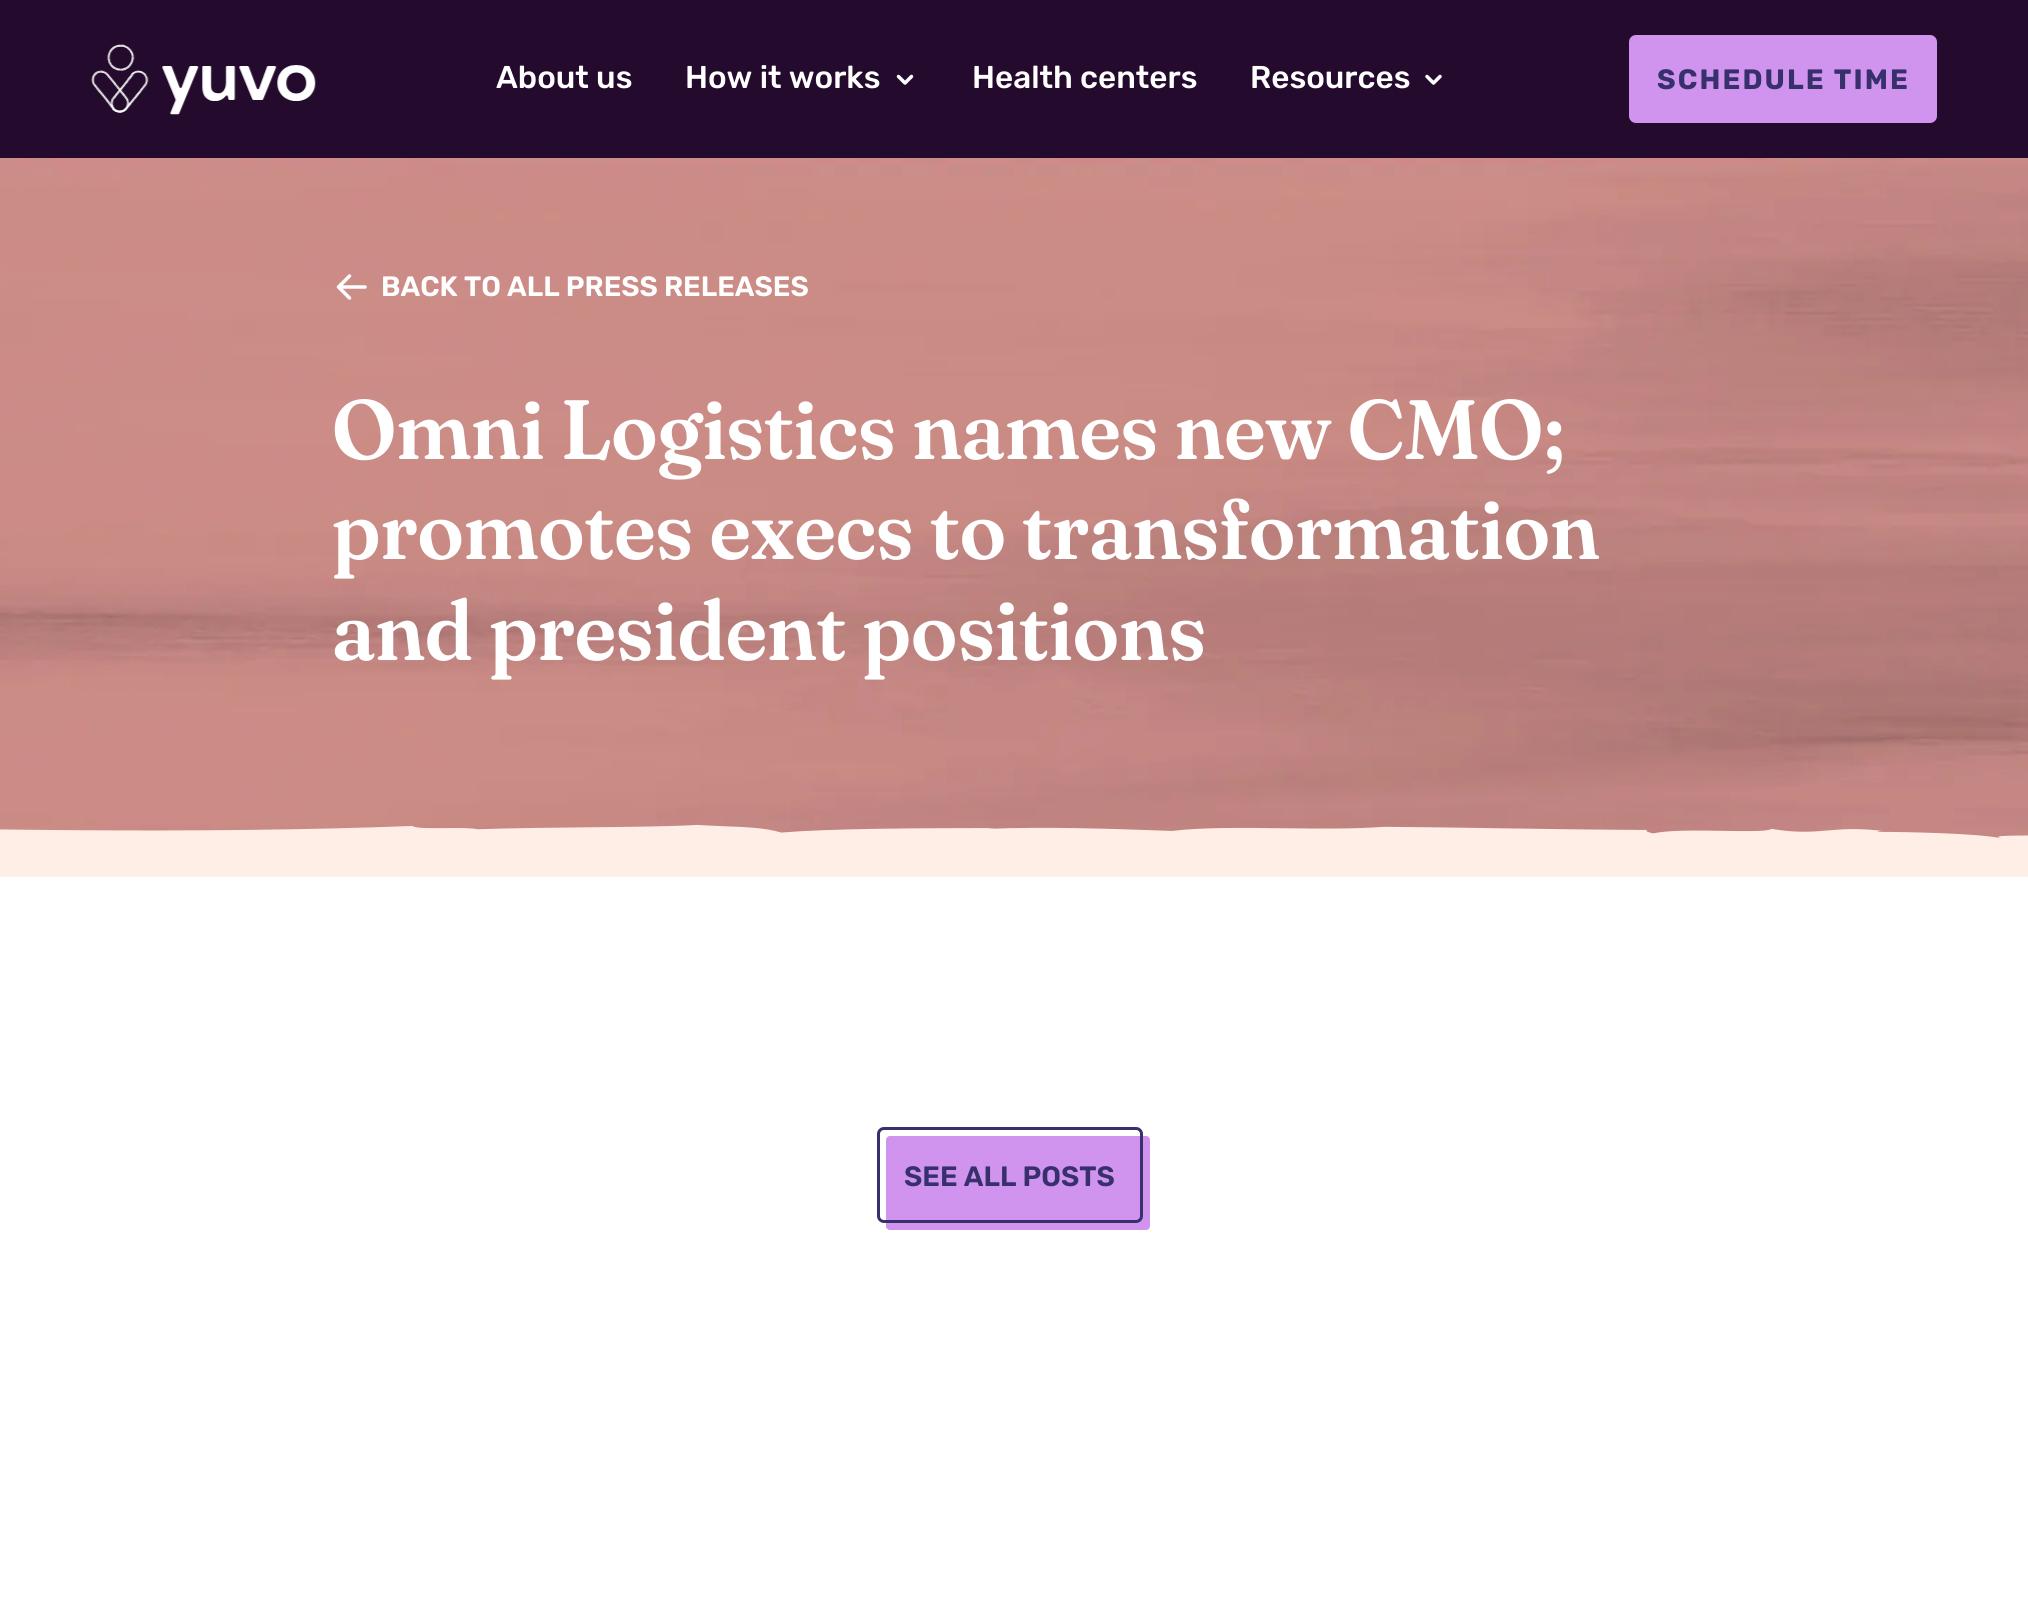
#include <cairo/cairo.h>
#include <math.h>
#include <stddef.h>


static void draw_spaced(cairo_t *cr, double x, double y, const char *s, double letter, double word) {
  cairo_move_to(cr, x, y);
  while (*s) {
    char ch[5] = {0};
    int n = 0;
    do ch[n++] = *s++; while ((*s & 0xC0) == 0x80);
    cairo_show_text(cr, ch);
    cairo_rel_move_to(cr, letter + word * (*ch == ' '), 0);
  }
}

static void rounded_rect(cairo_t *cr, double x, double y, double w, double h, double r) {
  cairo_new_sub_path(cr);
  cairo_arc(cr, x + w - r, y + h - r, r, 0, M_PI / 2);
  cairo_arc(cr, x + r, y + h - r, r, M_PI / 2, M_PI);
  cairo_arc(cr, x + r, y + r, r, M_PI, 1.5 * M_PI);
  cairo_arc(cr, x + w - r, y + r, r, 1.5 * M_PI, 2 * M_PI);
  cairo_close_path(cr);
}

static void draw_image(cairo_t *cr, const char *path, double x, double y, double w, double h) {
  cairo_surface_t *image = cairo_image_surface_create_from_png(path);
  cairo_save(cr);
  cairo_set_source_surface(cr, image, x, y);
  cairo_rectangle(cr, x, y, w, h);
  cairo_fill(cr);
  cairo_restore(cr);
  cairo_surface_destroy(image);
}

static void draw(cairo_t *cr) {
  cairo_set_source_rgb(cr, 1, 1, 1);
  cairo_paint(cr);
  cairo_set_source_rgb(cr, 36 / 255.0, 11 / 255.0, 45 / 255.0);
  cairo_rectangle(cr, 0, 0, 2028, 158);
  cairo_fill(cr);
  draw_image(cr, "images/1.png", 91, 44, 225, 71);
  cairo_new_path(cr);
  cairo_move_to(cr, 911.5, 76.5);
  cairo_line_to(cr, 905, 83);
  cairo_line_to(cr, 898.5, 76.5);
  cairo_set_source_rgb(cr, 1, 1, 1);
  cairo_set_line_width(cr, 3.5);
  cairo_set_line_cap(cr, CAIRO_LINE_CAP_ROUND);
  cairo_set_line_join(cr, CAIRO_LINE_JOIN_ROUND);
  cairo_stroke(cr);
  cairo_new_path(cr);
  cairo_move_to(cr, 1440, 76.5);
  cairo_line_to(cr, 1433.5, 83);
  cairo_line_to(cr, 1427, 76.5);
  cairo_stroke(cr);
  cairo_set_source_rgb(cr, 208 / 255.0, 148 / 255.0, 239 / 255.0);
  rounded_rect(cr, 1629, 35, 308, 88, 7);
  cairo_fill(cr);
  draw_image(cr, "images/2.png", 0, 158, 2028, 681);
  cairo_new_path(cr);
  cairo_move_to(cr, 365, 287);
  cairo_line_to(cr, 338.5, 287);
  cairo_move_to(cr, 349.5, 276);
  cairo_line_to(cr, 338.5, 287);
  cairo_line_to(cr, 349.5, 298);
  cairo_set_source_rgb(cr, 1, 1, 1);
  cairo_stroke(cr);
  draw_image(cr, "images/3.png", 0, 824, 2028, 53);
  cairo_set_source_rgb(cr, 208 / 255.0, 148 / 255.0, 239 / 255.0);
  rounded_rect(cr, 886, 1136, 264, 94, 4);
  cairo_fill(cr);
  rounded_rect(cr, 878.5, 1128.5, 263, 93, 5.5);
  cairo_set_source_rgb(cr, 56 / 255.0, 47 / 255.0, 109 / 255.0);
  cairo_set_line_width(cr, 3);
  cairo_set_line_cap(cr, CAIRO_LINE_CAP_BUTT);
  cairo_set_line_join(cr, CAIRO_LINE_JOIN_MITER);
  cairo_stroke(cr);
  cairo_select_font_face(cr, "Rubik Medium", CAIRO_FONT_SLANT_NORMAL, CAIRO_FONT_WEIGHT_NORMAL);
  cairo_set_font_size(cr, 31.5);
  cairo_set_source_rgb(cr, 1, 1, 1);
  cairo_move_to(cr, 496, 88);
  cairo_show_text(cr, "About us");
  cairo_move_to(cr, 685, 88);
  cairo_show_text(cr, "How it works");
  cairo_move_to(cr, 972, 88);
  cairo_show_text(cr, "Health centers");
  cairo_move_to(cr, 1250, 88);
  cairo_show_text(cr, "Resources");
  cairo_select_font_face(cr, "Rubik", CAIRO_FONT_SLANT_NORMAL, CAIRO_FONT_WEIGHT_BOLD);
  cairo_set_font_size(cr, 28);
  cairo_set_source_rgb(cr, 56 / 255.0, 47 / 255.0, 109 / 255.0);
  draw_spaced(cr, 1657, 89, "SCHEDULE TIME", 2.1, 0);
  cairo_select_font_face(cr, "Rubik SemiBold", CAIRO_FONT_SLANT_NORMAL, CAIRO_FONT_WEIGHT_NORMAL);
  cairo_set_source_rgb(cr, 1, 1, 1);
  cairo_move_to(cr, 381, 296);
  cairo_show_text(cr, "BACK TO ALL PRESS RELEASES");
  cairo_select_font_face(cr, "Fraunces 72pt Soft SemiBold", CAIRO_FONT_SLANT_NORMAL, CAIRO_FONT_WEIGHT_NORMAL);
  cairo_set_font_size(cr, 84);
  cairo_move_to(cr, 332, 459);
  cairo_show_text(cr, "Omni Logistics names new CMO;");
  cairo_move_to(cr, 332, 559);
  cairo_show_text(cr, "promotes execs to transformation");
  cairo_move_to(cr, 332, 660);
  cairo_show_text(cr, "and president positions");
  cairo_select_font_face(cr, "Rubik SemiBold", CAIRO_FONT_SLANT_NORMAL, CAIRO_FONT_WEIGHT_NORMAL);
  cairo_set_font_size(cr, 28);
  cairo_set_source_rgb(cr, 56 / 255.0, 47 / 255.0, 109 / 255.0);
  cairo_move_to(cr, 904, 1186);
  cairo_show_text(cr, "SEE ALL POSTS");
}

int main(void) {
  cairo_surface_t *surface = cairo_image_surface_create(CAIRO_FORMAT_RGB24, 2028, 1602);
  cairo_t *cr = cairo_create(surface);
  cairo_font_options_t *options = cairo_font_options_create();
  cairo_font_options_set_hint_metrics(options, CAIRO_HINT_METRICS_OFF);
  cairo_font_options_set_hint_style(options, CAIRO_HINT_STYLE_NONE);
  cairo_set_font_options(cr, options);
  cairo_set_miter_limit(cr, 4);
  draw(cr);
  cairo_surface_write_to_png(surface, "out.png");
  cairo_font_options_destroy(options);
  cairo_destroy(cr);
  cairo_surface_destroy(surface);
  return 0;
}
